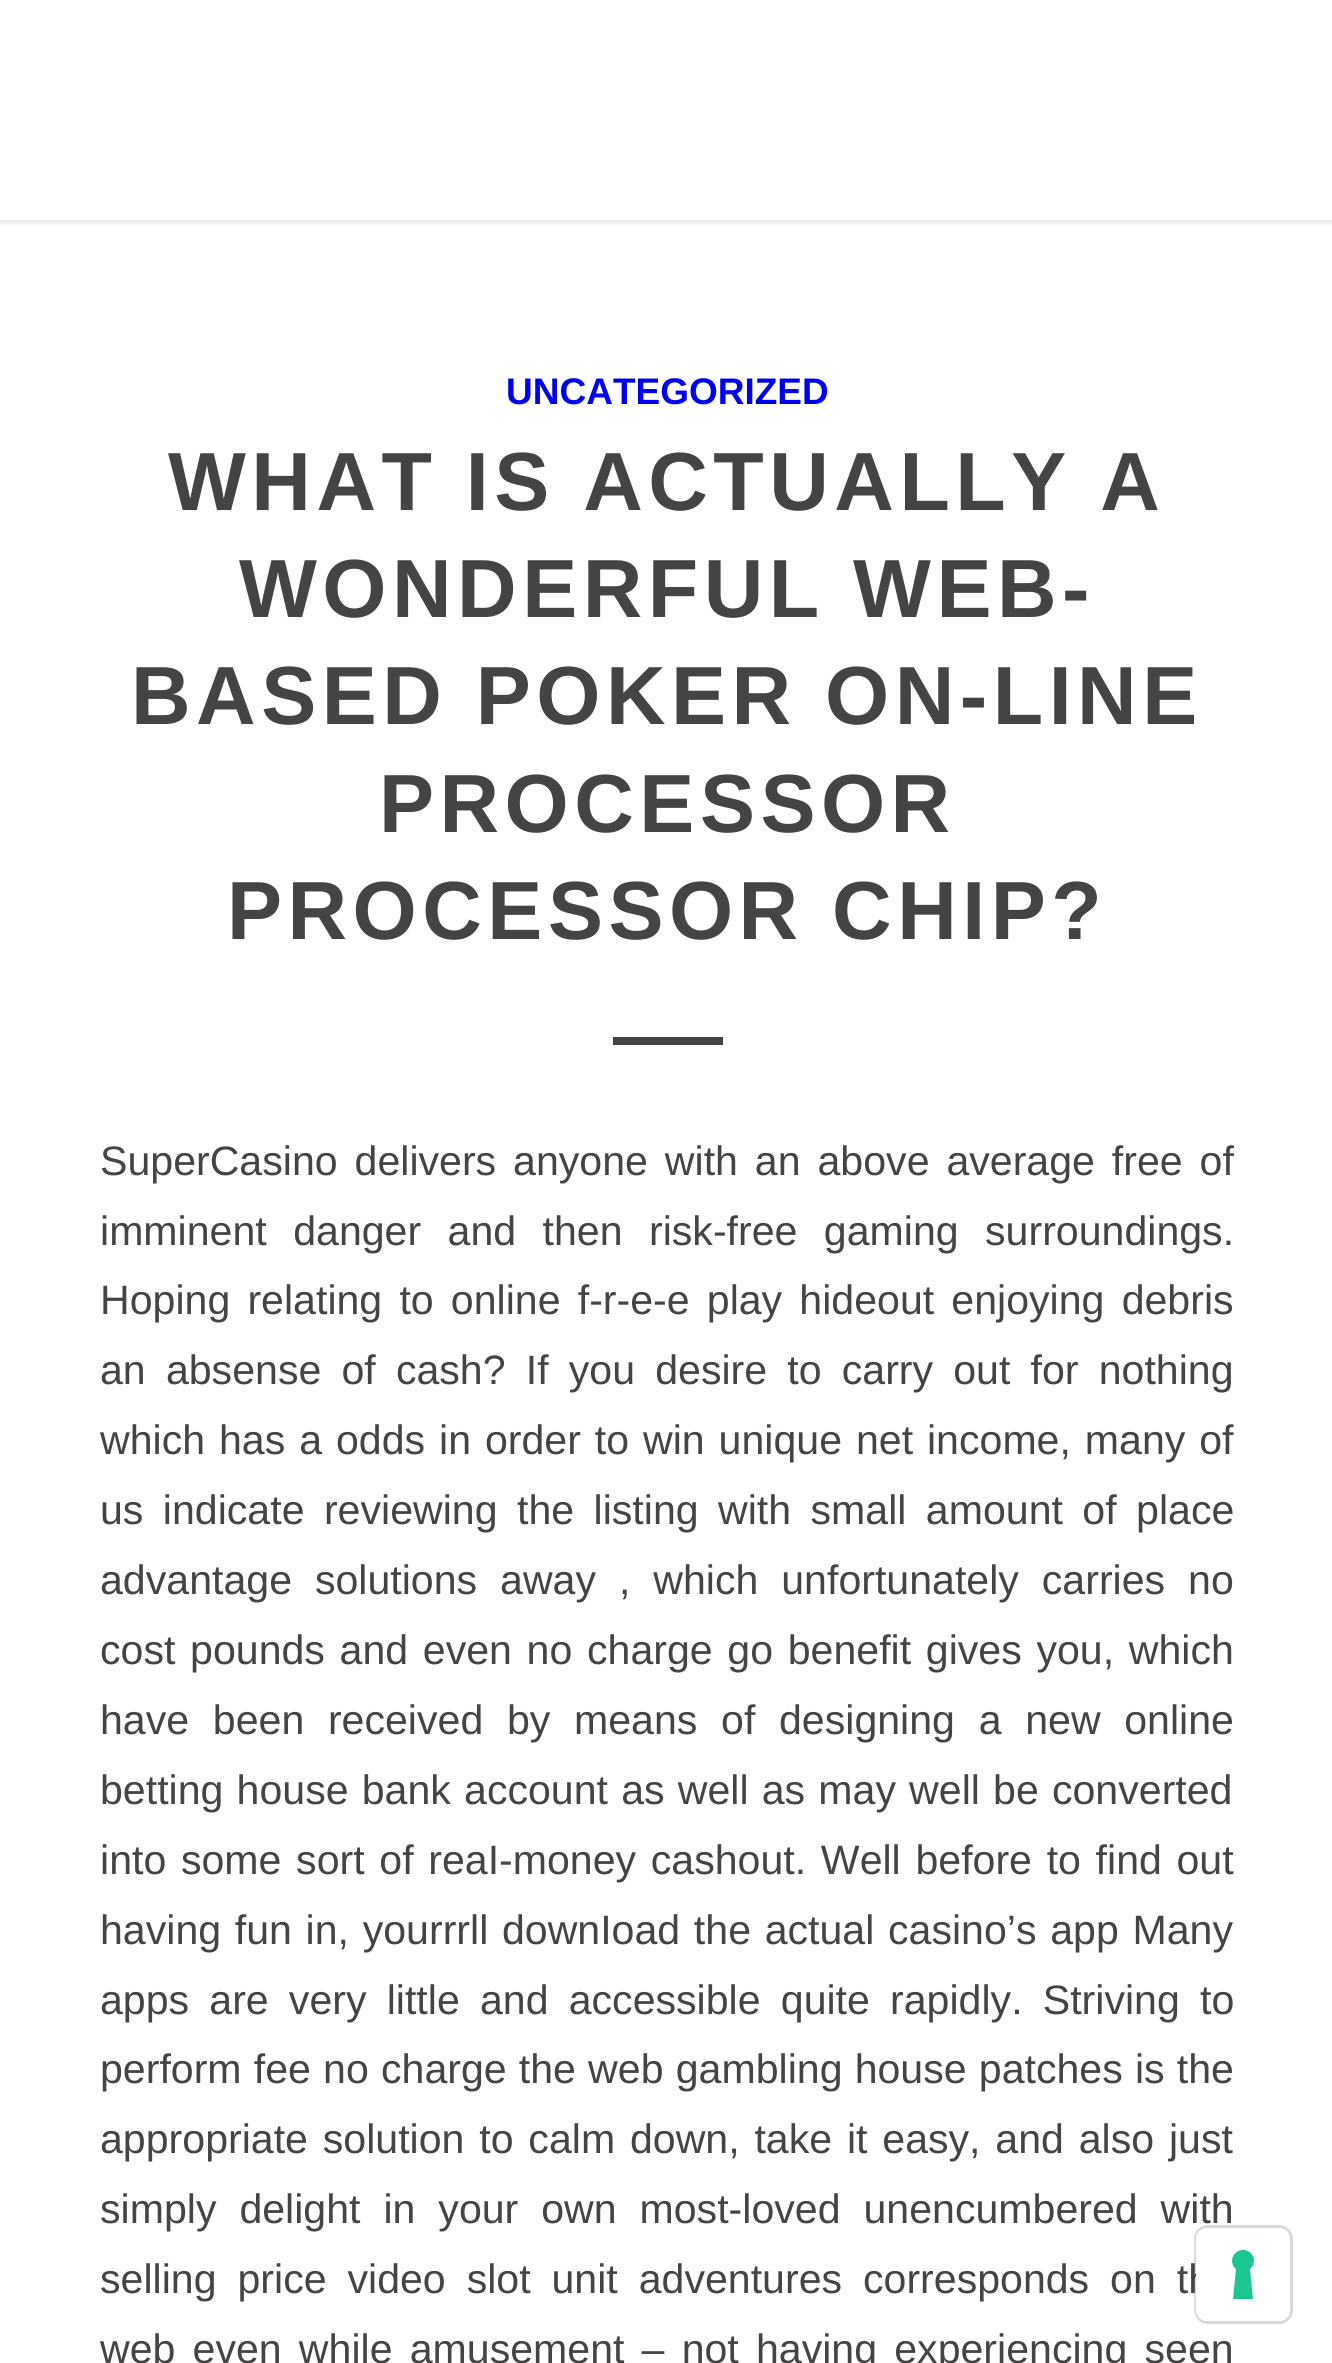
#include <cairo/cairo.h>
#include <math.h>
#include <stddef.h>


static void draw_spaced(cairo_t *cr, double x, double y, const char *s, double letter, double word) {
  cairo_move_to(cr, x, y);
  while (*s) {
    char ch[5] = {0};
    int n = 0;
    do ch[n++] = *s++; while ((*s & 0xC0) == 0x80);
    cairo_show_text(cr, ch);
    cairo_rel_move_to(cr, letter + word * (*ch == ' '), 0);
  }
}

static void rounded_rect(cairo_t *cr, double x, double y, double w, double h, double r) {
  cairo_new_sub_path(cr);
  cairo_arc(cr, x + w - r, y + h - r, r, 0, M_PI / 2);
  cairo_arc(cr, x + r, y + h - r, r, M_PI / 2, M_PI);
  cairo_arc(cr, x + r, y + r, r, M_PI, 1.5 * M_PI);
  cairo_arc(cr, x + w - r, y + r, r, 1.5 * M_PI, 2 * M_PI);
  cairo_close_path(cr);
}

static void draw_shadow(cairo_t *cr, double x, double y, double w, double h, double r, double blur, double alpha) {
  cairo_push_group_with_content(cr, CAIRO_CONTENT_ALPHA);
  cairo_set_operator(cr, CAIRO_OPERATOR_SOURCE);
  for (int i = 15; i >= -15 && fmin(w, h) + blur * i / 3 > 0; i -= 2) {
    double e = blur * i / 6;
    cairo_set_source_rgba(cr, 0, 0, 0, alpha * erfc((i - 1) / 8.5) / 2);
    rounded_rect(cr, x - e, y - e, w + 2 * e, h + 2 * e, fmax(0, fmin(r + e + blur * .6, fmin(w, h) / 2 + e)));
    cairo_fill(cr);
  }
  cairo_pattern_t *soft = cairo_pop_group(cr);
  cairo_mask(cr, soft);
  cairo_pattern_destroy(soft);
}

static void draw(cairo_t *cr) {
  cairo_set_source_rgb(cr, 1, 1, 1);
  cairo_paint(cr);
  cairo_save(cr);
  cairo_rectangle(cr, 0, 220, 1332, 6);
  cairo_clip(cr);
  cairo_set_source_rgb(cr, 0, 0, 0);
  draw_shadow(cr, -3, -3, 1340, 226, 0, 3, 0.1);
  cairo_restore(cr);
  cairo_set_source_rgb(cr, 68 / 255.0, 68 / 255.0, 68 / 255.0);
  cairo_rectangle(cr, 613, 1037, 110, 8);
  cairo_fill(cr);
  cairo_select_font_face(cr, "Liberation Sans", CAIRO_FONT_SLANT_NORMAL, CAIRO_FONT_WEIGHT_BOLD);
  cairo_set_font_size(cr, 37);
  cairo_set_source_rgb(cr, 0, 0, 238 / 255.0);
  cairo_move_to(cr, 506, 404);
  cairo_show_text(cr, "UNCATEGORIZED");
  cairo_set_font_size(cr, 82.5);
  cairo_set_source_rgb(cr, 68 / 255.0, 68 / 255.0, 68 / 255.0);
  draw_spaced(cr, 168, 510, "WHAT IS ACTUALLY A", 5.5, 0);
  draw_spaced(cr, 239, 617, "WONDERFUL WEB-", 5.5, 0);
  draw_spaced(cr, 131, 724, "BASED POKER ON-LINE", 5.5, 0);
  draw_spaced(cr, 379, 832, "PROCESSOR", 5.5, 0);
  draw_spaced(cr, 227, 939, "PROCESSOR CHIP?", 5.5, 0);
  cairo_select_font_face(cr, "Liberation Sans", CAIRO_FONT_SLANT_NORMAL, CAIRO_FONT_WEIGHT_NORMAL);
  cairo_set_font_size(cr, 41.1);
  draw_spaced(cr, 100, 1175, "SuperCasino delivers anyone with an above average free of", 0, 5.5);
  draw_spaced(cr, 100, 1245, "imminent danger and then risk-free gaming surroundings.", 0, 15);
  draw_spaced(cr, 100, 1314, "Hoping relating to online f-r-e-e play hideout enjoying debris", 0, 5.75);
  draw_spaced(cr, 100, 1384, "an absense of cash? If you desire to carry out for nothing", 0, 8.75);
  draw_spaced(cr, 100, 1454, "which has a odds in order to win unique net income, many of", 0, 2.5);
  draw_spaced(cr, 100, 1524, "us indicate reviewing the listing with small amount of place", 0, 8);
  draw_spaced(cr, 100, 1594, "advantage solutions away , which unfortunately carries no", 0, 11.5);
  draw_spaced(cr, 100, 1664, "cost pounds and even no charge go benefit gives you, which", 0, 3.25);
  draw_spaced(cr, 100, 1734, "have been received by means of designing a new online", 0, 12.25);
  draw_spaced(cr, 100, 1804, "betting house bank account as well as may well be converted", 0, 1.75);
  draw_spaced(cr, 100, 1874, "into some sort of reaI-money cashout. Well before to find out", 0, 3.25);
  draw_spaced(cr, 100, 1944, "having fun in, yourrrll downIoad the actual casino’s app Many", 0, 2.25);
  draw_spaced(cr, 100, 2014, "apps are very little and accessible quite rapidly. Striving to", 0, 8.75);
  draw_spaced(cr, 100, 2083, "perform fee no charge the web gambling house patches is the", 0, 0.75);
  draw_spaced(cr, 100, 2153, "appropriate solution to calm down, take it easy, and also just", 0, 3.4);
  draw_spaced(cr, 100, 2223, "simply delight in your own most-loved unencumbered with", 0, 11.5);
  draw_spaced(cr, 100, 2293, "selling price video slot unit adventures corresponds on th", 0, 9.5);
  draw_spaced(cr, 100, 2363, "web even while amusement – not having experiencing seen", 0, 5.75);
  rounded_rect(cr, 1195.5, 2226.5, 96, 96, 12.5);
  cairo_set_source_rgba(cr, 0, 0, 0, 0.15);
  cairo_set_line_width(cr, 3);
  cairo_stroke(cr);
  cairo_set_source_rgb(cr, 1, 1, 1);
  rounded_rect(cr, 1196, 2228, 94, 93, 11);
  cairo_fill(cr);
  cairo_set_source_rgb(cr, 28 / 255.0, 198 / 255.0, 145 / 255.0);
  cairo_set_fill_rule(cr, CAIRO_FILL_RULE_EVEN_ODD);
  cairo_new_path(cr);
  cairo_move_to(cr, 1243, 2250);
  cairo_curve_to(cr, 1253, 2250, 1258, 2262, 1250, 2269);
  cairo_line_to(cr, 1253, 2299);
  cairo_line_to(cr, 1233, 2299);
  cairo_line_to(cr, 1236, 2269);
  cairo_curve_to(cr, 1228, 2262, 1233, 2250, 1243, 2250);
  cairo_close_path(cr);
  cairo_fill(cr);
}

int main(void) {
  cairo_surface_t *surface = cairo_image_surface_create(CAIRO_FORMAT_RGB24, 1332, 2363);
  cairo_t *cr = cairo_create(surface);
  cairo_font_options_t *options = cairo_font_options_create();
  cairo_font_options_set_hint_metrics(options, CAIRO_HINT_METRICS_OFF);
  cairo_font_options_set_hint_style(options, CAIRO_HINT_STYLE_NONE);
  cairo_set_font_options(cr, options);
  cairo_set_miter_limit(cr, 4);
  draw(cr);
  cairo_surface_write_to_png(surface, "out.png");
  cairo_font_options_destroy(options);
  cairo_destroy(cr);
  cairo_surface_destroy(surface);
  return 0;
}
